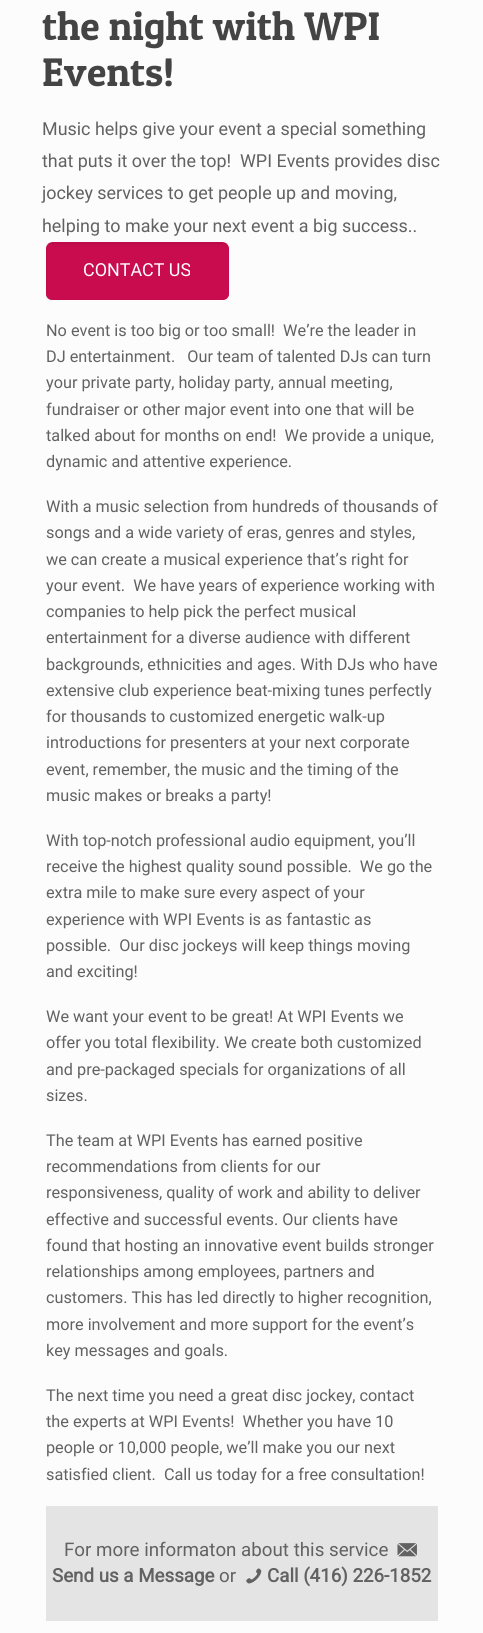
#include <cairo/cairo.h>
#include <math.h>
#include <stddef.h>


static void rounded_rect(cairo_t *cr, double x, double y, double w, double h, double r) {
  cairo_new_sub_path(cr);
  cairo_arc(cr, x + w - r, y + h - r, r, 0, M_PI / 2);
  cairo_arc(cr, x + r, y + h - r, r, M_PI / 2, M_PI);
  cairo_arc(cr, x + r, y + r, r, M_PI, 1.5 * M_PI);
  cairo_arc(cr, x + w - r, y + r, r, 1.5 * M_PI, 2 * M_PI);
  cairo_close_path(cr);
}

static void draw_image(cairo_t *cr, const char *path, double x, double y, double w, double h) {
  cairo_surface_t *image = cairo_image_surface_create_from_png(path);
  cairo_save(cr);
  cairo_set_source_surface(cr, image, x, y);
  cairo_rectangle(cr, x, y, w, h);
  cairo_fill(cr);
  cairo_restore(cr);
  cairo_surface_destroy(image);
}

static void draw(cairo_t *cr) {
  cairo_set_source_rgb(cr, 252 / 255.0, 252 / 255.0, 252 / 255.0);
  cairo_paint(cr);
  cairo_set_source_rgb(cr, 201 / 255.0, 12 / 255.0, 78 / 255.0);
  rounded_rect(cr, 46, 243, 183, 57, 6);
  cairo_fill(cr);
  draw_image(cr, "images/1.png", 46, 242, 183, 57);
  cairo_rectangle(cr, 46.5, 243.5, 182, 56);
  cairo_set_source_rgba(cr, 0, 0, 0, 0.03);
  cairo_set_line_width(cr, 1);
  cairo_stroke(cr);
  cairo_set_source_rgb(cr, 228 / 255.0, 228 / 255.0, 228 / 255.0);
  cairo_rectangle(cr, 46, 1506, 392, 115);
  cairo_fill(cr);
  draw_image(cr, "images/2.png", 397, 1543, 20, 14);
  draw_image(cr, "images/3.png", 246, 1568, 16, 16);
  cairo_select_font_face(cr, "Patua One", CAIRO_FONT_SLANT_NORMAL, CAIRO_FONT_WEIGHT_NORMAL);
  cairo_set_font_size(cr, 40);
  cairo_set_source_rgb(cr, 68 / 255.0, 68 / 255.0, 68 / 255.0);
  cairo_move_to(cr, 42, 40);
  cairo_show_text(cr, "the night with WPI");
  cairo_move_to(cr, 42, 86);
  cairo_show_text(cr, "Events!");
  cairo_select_font_face(cr, "Roboto", CAIRO_FONT_SLANT_NORMAL, CAIRO_FONT_WEIGHT_NORMAL);
  cairo_set_font_size(cr, 17.9);
  cairo_set_source_rgb(cr, 98 / 255.0, 98 / 255.0, 98 / 255.0);
  cairo_move_to(cr, 42, 135);
  cairo_show_text(cr, "Music helps give your event a special something");
  cairo_move_to(cr, 42, 167);
  cairo_show_text(cr, "that puts it over the top!  WPI Events provides disc");
  cairo_move_to(cr, 42, 199);
  cairo_show_text(cr, "jockey services to get people up and moving,");
  cairo_move_to(cr, 42, 232);
  cairo_show_text(cr, "helping to make your next event a big success..");
  cairo_set_source_rgb(cr, 1, 1, 1);
  cairo_move_to(cr, 83, 276);
  cairo_show_text(cr, "CONTACT US");
  cairo_set_font_size(cr, 16.25);
  cairo_set_source_rgb(cr, 98 / 255.0, 98 / 255.0, 98 / 255.0);
  cairo_move_to(cr, 46, 336);
  cairo_show_text(cr, "No event is too big or too small!  We’re the leader in");
  cairo_move_to(cr, 46, 362);
  cairo_show_text(cr, "DJ entertainment.   Our team of talented DJs can turn");
  cairo_move_to(cr, 46, 388);
  cairo_show_text(cr, "your private party, holiday party, annual meeting,");
  cairo_move_to(cr, 46, 415);
  cairo_show_text(cr, "fundraiser or other major event into one that will be");
  cairo_move_to(cr, 46, 441);
  cairo_show_text(cr, "talked about for months on end!  We provide a unique,");
  cairo_move_to(cr, 46, 467);
  cairo_show_text(cr, "dynamic and attentive experience.");
  cairo_move_to(cr, 46, 512);
  cairo_show_text(cr, "With a music selection from hundreds of thousands of");
  cairo_move_to(cr, 46, 538);
  cairo_show_text(cr, "songs and a wide variety of eras, genres and styles,");
  cairo_move_to(cr, 46, 565);
  cairo_show_text(cr, "we can create a musical experience that’s right for");
  cairo_move_to(cr, 46, 591);
  cairo_show_text(cr, "your event.  We have years of experience working with");
  cairo_move_to(cr, 46, 617);
  cairo_show_text(cr, "companies to help pick the perfect musical");
  cairo_move_to(cr, 46, 643);
  cairo_show_text(cr, "entertainment for a diverse audience with different");
  cairo_move_to(cr, 46, 670);
  cairo_show_text(cr, "backgrounds, ethnicities and ages. With DJs who have");
  cairo_move_to(cr, 46, 696);
  cairo_show_text(cr, "extensive club experience beat-mixing tunes perfectly");
  cairo_move_to(cr, 46, 722);
  cairo_show_text(cr, "for thousands to customized energetic walk-up");
  cairo_move_to(cr, 46, 748);
  cairo_show_text(cr, "introductions for presenters at your next corporate");
  cairo_move_to(cr, 46, 775);
  cairo_show_text(cr, "event, remember, the music and the timing of the");
  cairo_move_to(cr, 46, 801);
  cairo_show_text(cr, "music makes or breaks a party!");
  cairo_move_to(cr, 46, 846);
  cairo_show_text(cr, "With top-notch professional audio equipment, you’ll");
  cairo_move_to(cr, 46, 872);
  cairo_show_text(cr, "receive the highest quality sound possible.  We go the");
  cairo_move_to(cr, 46, 898);
  cairo_show_text(cr, "extra mile to make sure every aspect of your");
  cairo_move_to(cr, 46, 925);
  cairo_show_text(cr, "experience with WPI Events is as fantastic as");
  cairo_move_to(cr, 46, 951);
  cairo_show_text(cr, "possible.  Our disc jockeys will keep things moving");
  cairo_move_to(cr, 46, 977);
  cairo_show_text(cr, "and exciting!");
  cairo_move_to(cr, 46, 1022);
  cairo_show_text(cr, "We want your event to be great! At WPI Events we");
  cairo_move_to(cr, 46, 1048);
  cairo_show_text(cr, "offer you total flexibility. We create both customized");
  cairo_move_to(cr, 46, 1075);
  cairo_show_text(cr, "and pre-packaged specials for organizations of all");
  cairo_move_to(cr, 46, 1101);
  cairo_show_text(cr, "sizes.");
  cairo_move_to(cr, 46, 1146);
  cairo_show_text(cr, "The team at WPI Events has earned positive");
  cairo_move_to(cr, 46, 1172);
  cairo_show_text(cr, "recommendations from clients for our");
  cairo_move_to(cr, 46, 1198);
  cairo_show_text(cr, "responsiveness, quality of work and ability to deliver");
  cairo_move_to(cr, 46, 1225);
  cairo_show_text(cr, "effective and successful events. Our clients have");
  cairo_move_to(cr, 46, 1251);
  cairo_show_text(cr, "found that hosting an innovative event builds stronger");
  cairo_move_to(cr, 46, 1277);
  cairo_show_text(cr, "relationships among employees, partners and");
  cairo_move_to(cr, 46, 1303);
  cairo_show_text(cr, "customers. This has led directly to higher recognition,");
  cairo_move_to(cr, 46, 1330);
  cairo_show_text(cr, "more involvement and more support for the event’s");
  cairo_move_to(cr, 46, 1356);
  cairo_show_text(cr, "key messages and goals.");
  cairo_move_to(cr, 46, 1401);
  cairo_show_text(cr, "The next time you need a great disc jockey, contact");
  cairo_move_to(cr, 46, 1427);
  cairo_show_text(cr, "the experts at WPI Events!  Whether you have 10");
  cairo_move_to(cr, 46, 1453);
  cairo_show_text(cr, "people or 10,000 people, we’ll make you our next");
  cairo_move_to(cr, 46, 1480);
  cairo_show_text(cr, "satisfied client.  Call us today for a free consultation!");
  cairo_set_font_size(cr, 18.75);
  cairo_move_to(cr, 64, 1556);
  cairo_show_text(cr, "For more informaton about this service");
  cairo_select_font_face(cr, "Roboto", CAIRO_FONT_SLANT_NORMAL, CAIRO_FONT_WEIGHT_BOLD);
  cairo_move_to(cr, 52, 1582);
  cairo_show_text(cr, "Send us a Message");
  cairo_select_font_face(cr, "Roboto", CAIRO_FONT_SLANT_NORMAL, CAIRO_FONT_WEIGHT_NORMAL);
  cairo_move_to(cr, 219, 1582);
  cairo_show_text(cr, "or");
  cairo_select_font_face(cr, "Roboto", CAIRO_FONT_SLANT_NORMAL, CAIRO_FONT_WEIGHT_BOLD);
  cairo_move_to(cr, 267, 1582);
  cairo_show_text(cr, "Call (416) 226-1852");
}

int main(void) {
  cairo_surface_t *surface = cairo_image_surface_create(CAIRO_FORMAT_RGB24, 483, 1633);
  cairo_t *cr = cairo_create(surface);
  cairo_font_options_t *options = cairo_font_options_create();
  cairo_font_options_set_hint_metrics(options, CAIRO_HINT_METRICS_OFF);
  cairo_font_options_set_hint_style(options, CAIRO_HINT_STYLE_NONE);
  cairo_set_font_options(cr, options);
  cairo_set_miter_limit(cr, 4);
  draw(cr);
  cairo_surface_write_to_png(surface, "out.png");
  cairo_font_options_destroy(options);
  cairo_destroy(cr);
  cairo_surface_destroy(surface);
  return 0;
}
